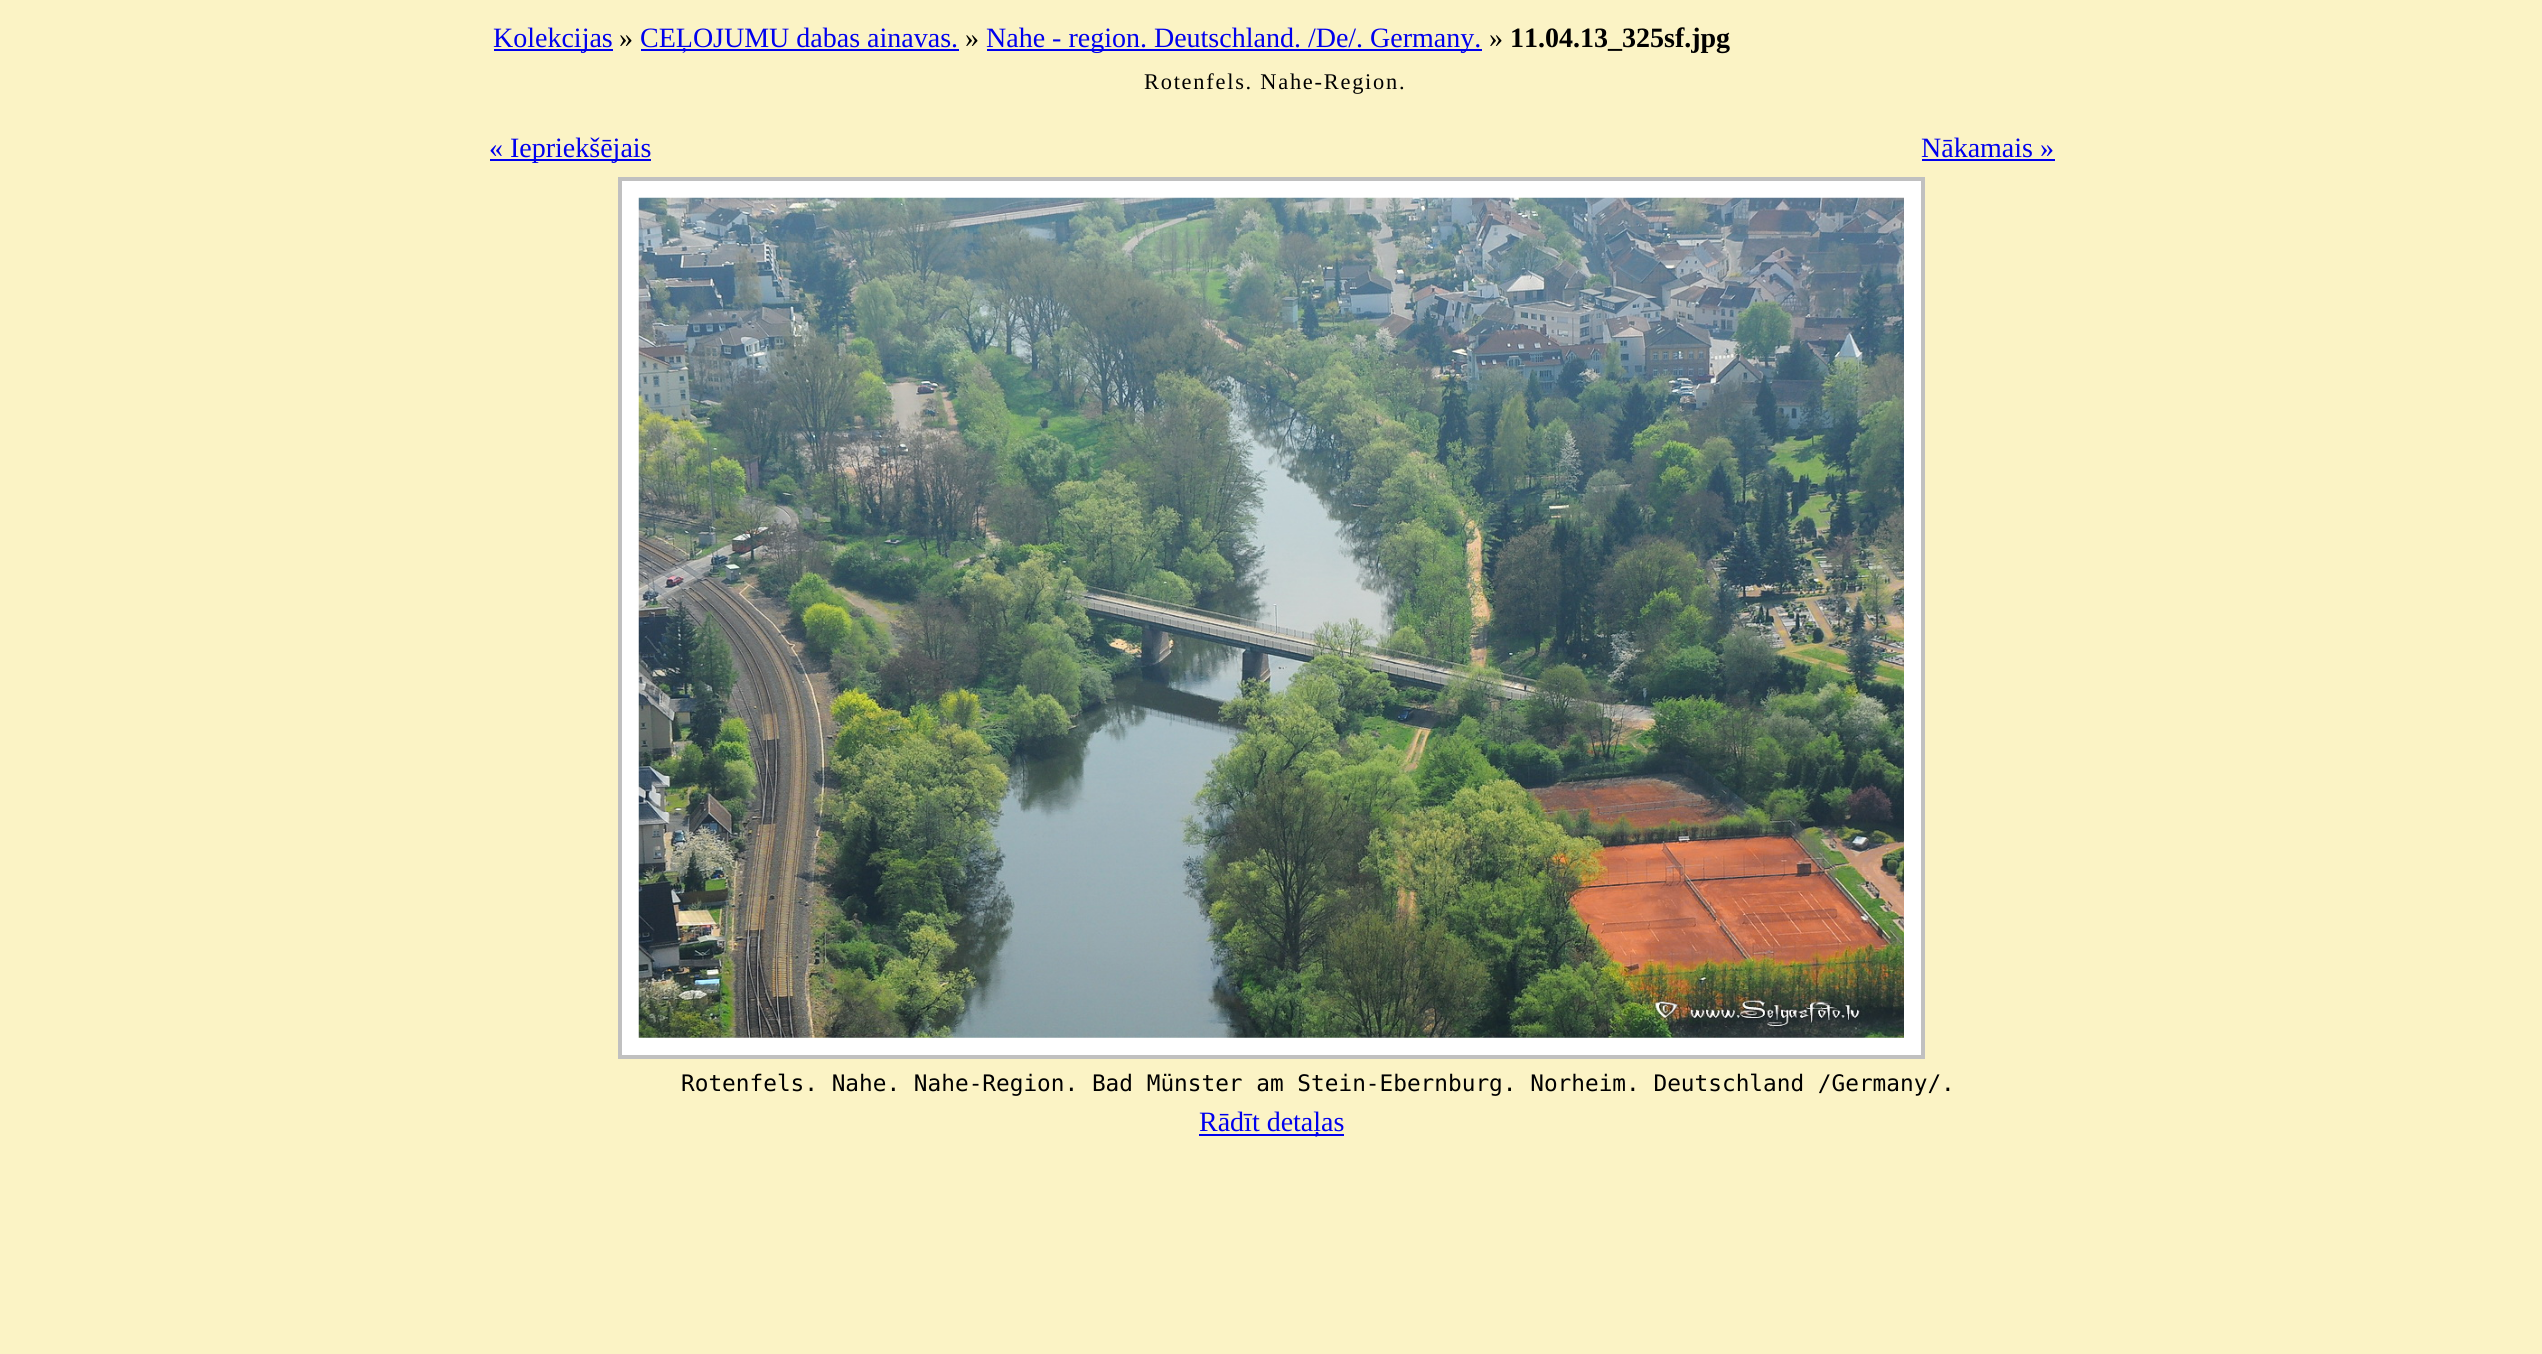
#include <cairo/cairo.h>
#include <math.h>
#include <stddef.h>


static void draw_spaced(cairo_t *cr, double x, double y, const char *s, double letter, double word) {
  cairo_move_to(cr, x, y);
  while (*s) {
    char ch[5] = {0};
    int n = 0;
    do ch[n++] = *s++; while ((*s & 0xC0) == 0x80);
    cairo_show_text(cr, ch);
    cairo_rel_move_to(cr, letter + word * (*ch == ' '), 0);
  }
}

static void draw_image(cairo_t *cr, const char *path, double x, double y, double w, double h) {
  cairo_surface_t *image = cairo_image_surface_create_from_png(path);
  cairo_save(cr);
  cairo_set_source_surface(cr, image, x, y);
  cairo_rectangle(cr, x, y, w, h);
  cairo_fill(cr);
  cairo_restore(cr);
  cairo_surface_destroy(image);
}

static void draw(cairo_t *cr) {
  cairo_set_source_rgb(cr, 251 / 255.0, 243 / 255.0, 197 / 255.0);
  cairo_paint(cr);
  cairo_set_source_rgb(cr, 0, 0, 238 / 255.0);
  cairo_rectangle(cr, 494, 49, 119, 2);
  cairo_fill(cr);
  cairo_rectangle(cr, 641, 49, 318, 2);
  cairo_fill(cr);
  cairo_rectangle(cr, 987, 49, 495, 2);
  cairo_fill(cr);
  cairo_rectangle(cr, 490, 159, 161, 2);
  cairo_fill(cr);
  cairo_rectangle(cr, 1922, 159, 133, 2);
  cairo_fill(cr);
  cairo_set_source_rgb(cr, 1, 1, 1);
  cairo_rectangle(cr, 620, 179, 1303, 878);
  cairo_fill_preserve(cr);
  cairo_set_source_rgb(cr, 192 / 255.0, 192 / 255.0, 192 / 255.0);
  cairo_set_line_width(cr, 4);
  cairo_stroke(cr);
  draw_image(cr, "images/1.png", 638, 197, 1266, 841);
  cairo_set_source_rgb(cr, 0, 0, 238 / 255.0);
  cairo_rectangle(cr, 1199, 1134, 145, 2);
  cairo_fill(cr);
  cairo_select_font_face(cr, "Liberation Serif", CAIRO_FONT_SLANT_NORMAL, CAIRO_FONT_WEIGHT_NORMAL);
  cairo_set_font_size(cr, 28);
  cairo_move_to(cr, 493, 47);
  cairo_show_text(cr, "Kolekcijas");
  cairo_set_source_rgb(cr, 0, 0, 0);
  cairo_move_to(cr, 619, 47);
  cairo_show_text(cr, "»");
  cairo_set_source_rgb(cr, 0, 0, 238 / 255.0);
  cairo_move_to(cr, 640, 47);
  cairo_show_text(cr, "CEĻOJUMU dabas ainavas.");
  cairo_set_source_rgb(cr, 0, 0, 0);
  cairo_move_to(cr, 965, 47);
  cairo_show_text(cr, "»");
  cairo_set_source_rgb(cr, 0, 0, 238 / 255.0);
  cairo_move_to(cr, 986, 47);
  cairo_show_text(cr, "Nahe - region. Deutschland. /De/. Germany.");
  cairo_set_source_rgb(cr, 0, 0, 0);
  cairo_move_to(cr, 1489, 47);
  cairo_show_text(cr, "»");
  cairo_select_font_face(cr, "Liberation Serif", CAIRO_FONT_SLANT_NORMAL, CAIRO_FONT_WEIGHT_BOLD);
  cairo_move_to(cr, 1510, 47);
  cairo_show_text(cr, "11.04.13_325sf.jpg");
  cairo_select_font_face(cr, "Liberation Serif", CAIRO_FONT_SLANT_NORMAL, CAIRO_FONT_WEIGHT_NORMAL);
  cairo_set_font_size(cr, 22.4);
  draw_spaced(cr, 1144, 89, "Rotenfels. Nahe-Region.", 1.75, 0);
  cairo_set_font_size(cr, 28);
  cairo_set_source_rgb(cr, 0, 0, 238 / 255.0);
  cairo_move_to(cr, 489, 157);
  cairo_show_text(cr, "« Iepriekšējais");
  cairo_move_to(cr, 1921, 157);
  cairo_show_text(cr, "Nākamais »");
  cairo_select_font_face(cr, "DejaVu Sans Mono", CAIRO_FONT_SLANT_NORMAL, CAIRO_FONT_WEIGHT_NORMAL);
  cairo_set_font_size(cr, 22.75);
  cairo_set_source_rgb(cr, 0, 0, 0);
  cairo_move_to(cr, 681, 1091);
  cairo_show_text(cr, "Rotenfels. Nahe. Nahe-Region. Bad Münster am Stein-Ebernburg. Norheim. Deutschland /Germany/.");
  cairo_select_font_face(cr, "Liberation Serif", CAIRO_FONT_SLANT_NORMAL, CAIRO_FONT_WEIGHT_NORMAL);
  cairo_set_font_size(cr, 28);
  cairo_set_source_rgb(cr, 0, 0, 238 / 255.0);
  cairo_move_to(cr, 1199, 1131);
  cairo_show_text(cr, "Rādīt detaļas");
}

int main(void) {
  cairo_surface_t *surface = cairo_image_surface_create(CAIRO_FORMAT_RGB24, 2542, 1354);
  cairo_t *cr = cairo_create(surface);
  cairo_font_options_t *options = cairo_font_options_create();
  cairo_font_options_set_hint_metrics(options, CAIRO_HINT_METRICS_OFF);
  cairo_font_options_set_hint_style(options, CAIRO_HINT_STYLE_NONE);
  cairo_set_font_options(cr, options);
  cairo_set_miter_limit(cr, 4);
  draw(cr);
  cairo_surface_write_to_png(surface, "out.png");
  cairo_font_options_destroy(options);
  cairo_destroy(cr);
  cairo_surface_destroy(surface);
  return 0;
}
